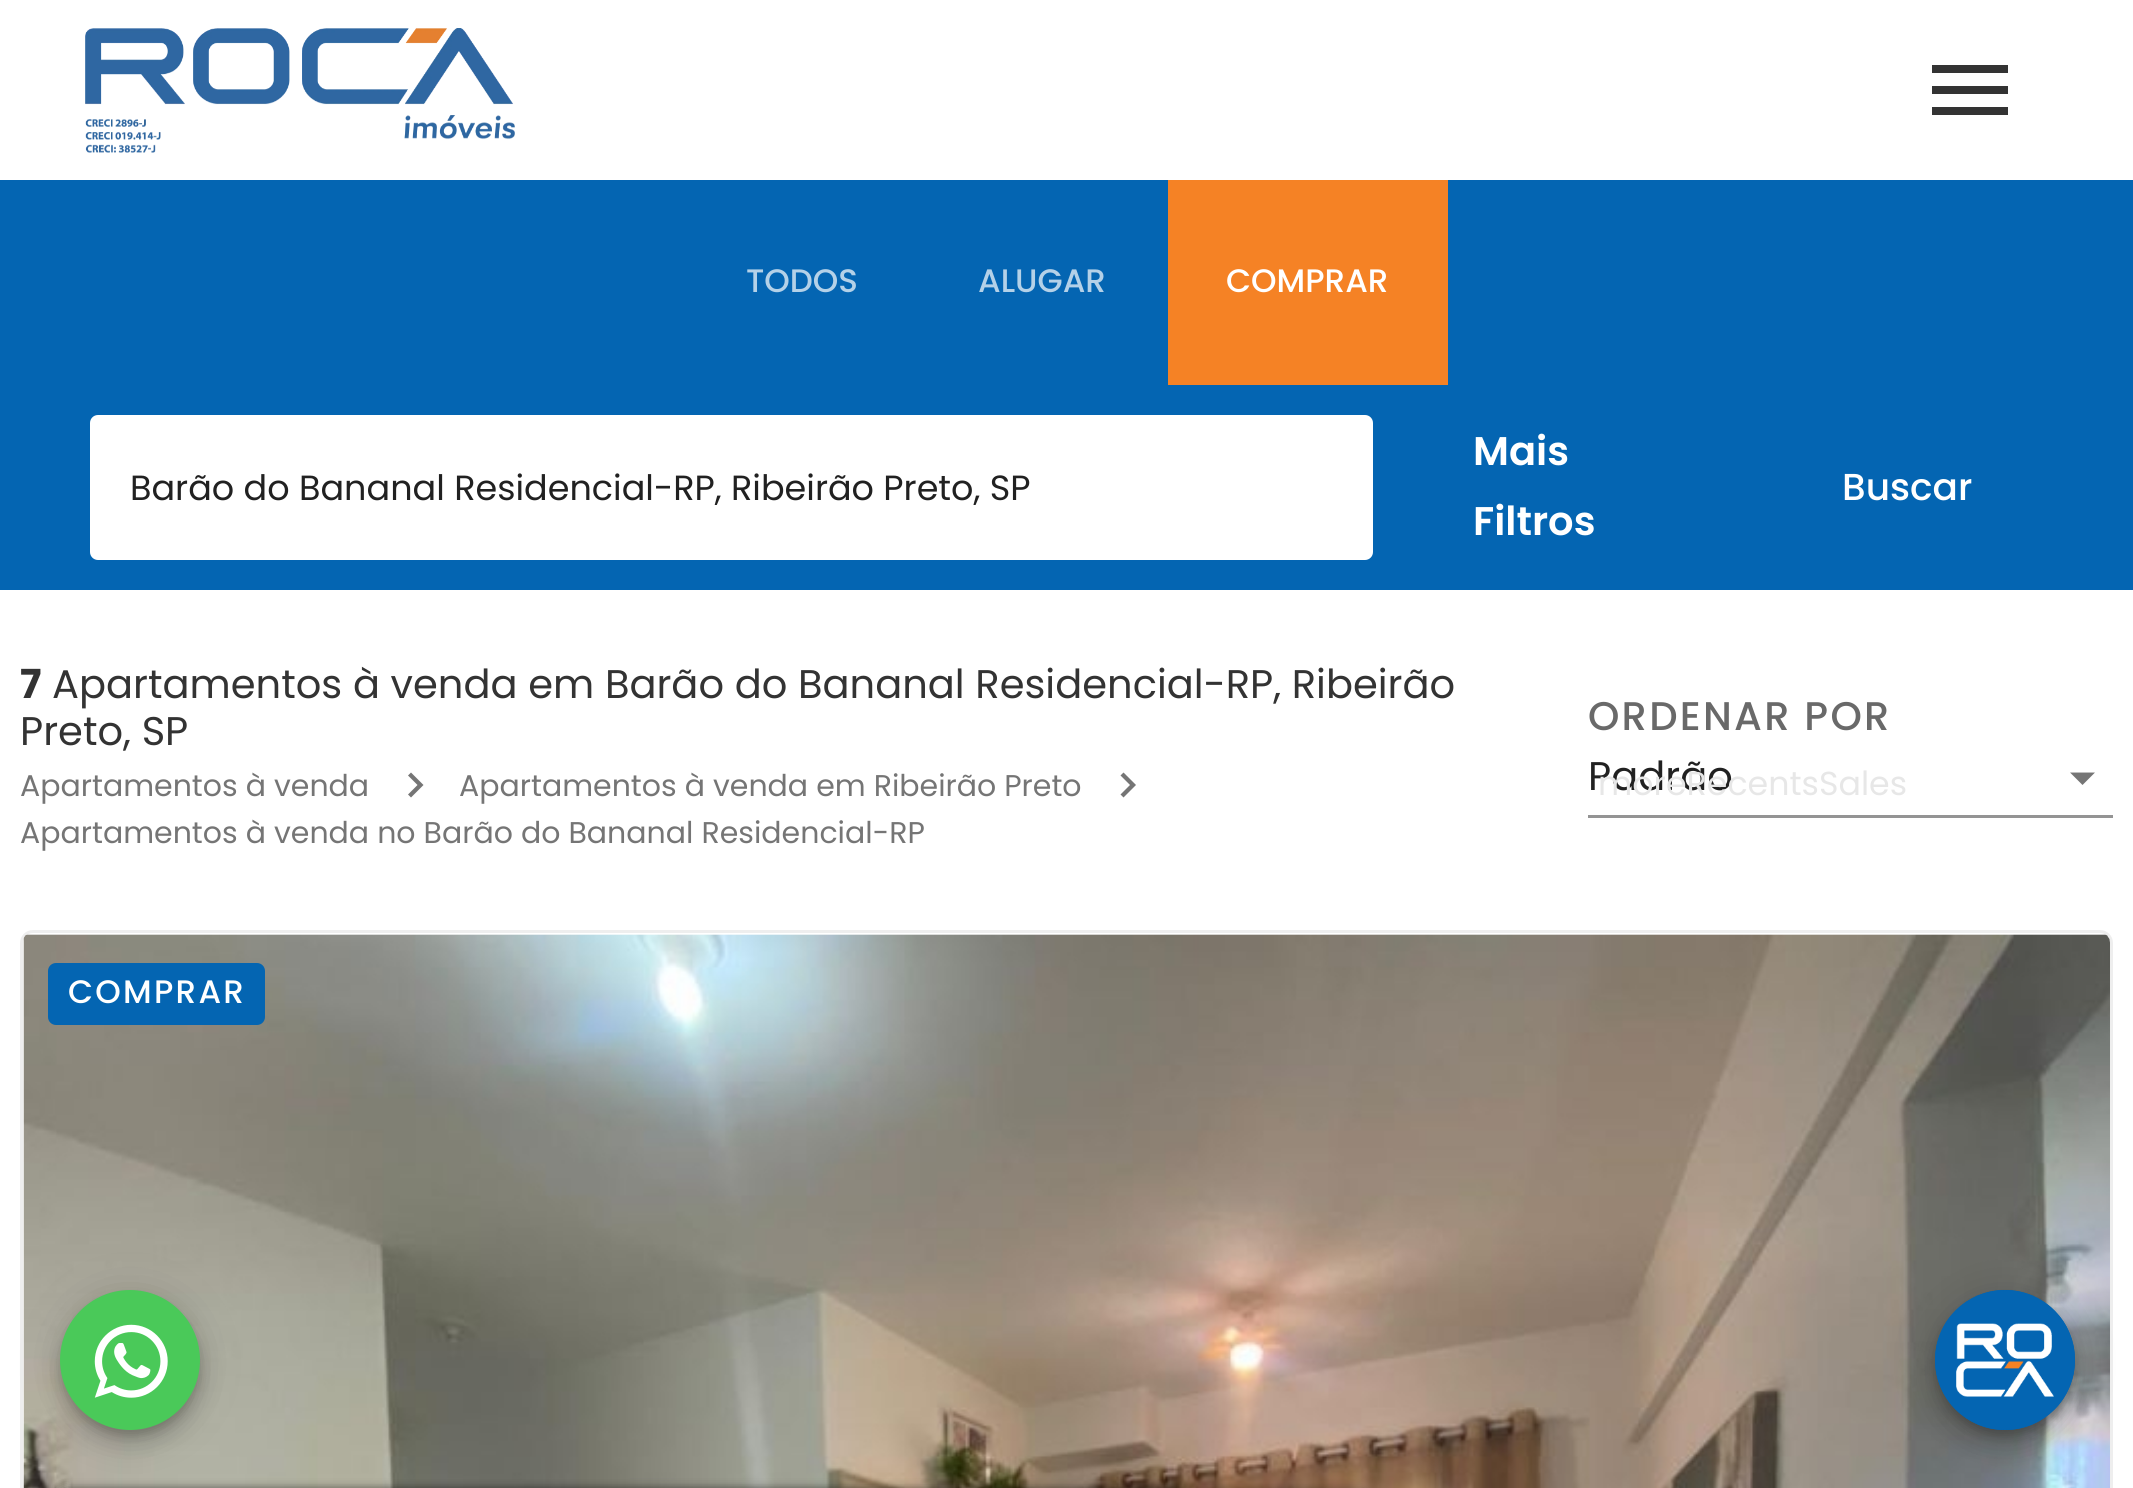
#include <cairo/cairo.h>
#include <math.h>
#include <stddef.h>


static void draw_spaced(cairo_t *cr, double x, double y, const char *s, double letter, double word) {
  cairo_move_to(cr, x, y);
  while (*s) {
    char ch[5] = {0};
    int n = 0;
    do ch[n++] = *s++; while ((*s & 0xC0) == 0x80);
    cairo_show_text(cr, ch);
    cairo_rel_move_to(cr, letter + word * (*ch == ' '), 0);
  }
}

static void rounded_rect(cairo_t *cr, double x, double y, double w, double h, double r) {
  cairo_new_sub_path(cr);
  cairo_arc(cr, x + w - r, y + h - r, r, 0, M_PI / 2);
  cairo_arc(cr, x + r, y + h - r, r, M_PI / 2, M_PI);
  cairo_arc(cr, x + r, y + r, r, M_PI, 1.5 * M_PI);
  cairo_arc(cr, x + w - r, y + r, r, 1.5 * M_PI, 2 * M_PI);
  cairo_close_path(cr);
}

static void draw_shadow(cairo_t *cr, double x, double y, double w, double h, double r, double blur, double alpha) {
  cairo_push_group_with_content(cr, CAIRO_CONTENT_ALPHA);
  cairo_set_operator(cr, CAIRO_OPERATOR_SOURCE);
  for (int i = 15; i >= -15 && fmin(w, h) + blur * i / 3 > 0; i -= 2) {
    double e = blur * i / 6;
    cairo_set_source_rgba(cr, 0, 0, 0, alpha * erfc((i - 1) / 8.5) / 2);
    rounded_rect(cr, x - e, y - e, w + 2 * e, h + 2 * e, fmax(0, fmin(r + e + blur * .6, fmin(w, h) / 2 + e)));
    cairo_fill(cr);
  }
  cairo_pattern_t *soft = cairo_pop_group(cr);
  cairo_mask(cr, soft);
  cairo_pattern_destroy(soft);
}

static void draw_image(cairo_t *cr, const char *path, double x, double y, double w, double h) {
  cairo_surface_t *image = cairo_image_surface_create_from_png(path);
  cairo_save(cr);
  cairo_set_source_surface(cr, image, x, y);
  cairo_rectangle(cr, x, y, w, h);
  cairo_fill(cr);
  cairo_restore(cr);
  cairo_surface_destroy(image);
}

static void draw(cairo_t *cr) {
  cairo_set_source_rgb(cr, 1, 1, 1);
  cairo_paint(cr);
  draw_image(cr, "images/1.png", 85, 28, 430, 125);
  cairo_set_source_rgb(cr, 51 / 255.0, 51 / 255.0, 51 / 255.0);
  cairo_new_path(cr);
  cairo_move_to(cr, 1932, 115);
  cairo_line_to(cr, 2008, 115);
  cairo_line_to(cr, 2008, 107);
  cairo_line_to(cr, 1932, 107);
  cairo_close_path(cr);
  cairo_move_to(cr, 1932, 94);
  cairo_line_to(cr, 2008, 94);
  cairo_line_to(cr, 2008, 86);
  cairo_line_to(cr, 1932, 86);
  cairo_close_path(cr);
  cairo_move_to(cr, 1932, 65);
  cairo_line_to(cr, 1932, 73);
  cairo_line_to(cr, 2008, 73);
  cairo_line_to(cr, 2008, 65);
  cairo_close_path(cr);
  cairo_fill(cr);
  cairo_set_source_rgb(cr, 4 / 255.0, 101 / 255.0, 178 / 255.0);
  cairo_rectangle(cr, 0, 180, 2133, 410);
  cairo_fill(cr);
  cairo_set_source_rgb(cr, 245 / 255.0, 130 / 255.0, 37 / 255.0);
  cairo_rectangle(cr, 1168, 180, 280, 205);
  cairo_fill(cr);
  cairo_set_source_rgb(cr, 1, 1, 1);
  rounded_rect(cr, 90, 415, 1283, 145, 8);
  cairo_fill(cr);
  cairo_set_source_rgb(cr, 117 / 255.0, 117 / 255.0, 117 / 255.0);
  cairo_new_path(cr);
  cairo_move_to(cr, 411, 772.5);
  cairo_line_to(cr, 408, 775.5);
  cairo_line_to(cr, 417.5, 785);
  cairo_line_to(cr, 408, 794.5);
  cairo_line_to(cr, 411, 797.5);
  cairo_line_to(cr, 423.5, 785);
  cairo_close_path(cr);
  cairo_fill(cr);
  cairo_new_path(cr);
  cairo_move_to(cr, 1123.5, 772.5);
  cairo_line_to(cr, 1120.5, 775.5);
  cairo_line_to(cr, 1130, 785);
  cairo_line_to(cr, 1120.5, 794.5);
  cairo_line_to(cr, 1123.5, 797.5);
  cairo_line_to(cr, 1136, 785);
  cairo_close_path(cr);
  cairo_fill(cr);
  cairo_new_path(cr);
  cairo_move_to(cr, 2070, 772.5);
  cairo_line_to(cr, 2082.5, 785);
  cairo_line_to(cr, 2095, 772.5);
  cairo_close_path(cr);
  cairo_fill(cr);
  cairo_set_source_rgb(cr, 148 / 255.0, 148 / 255.0, 148 / 255.0);
  cairo_rectangle(cr, 1588, 815, 525, 3);
  cairo_fill(cr);
  rounded_rect(cr, 21.5, 931.5, 2090, 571, 11.5);
  cairo_set_source_rgb(cr, 238 / 255.0, 238 / 255.0, 238 / 255.0);
  cairo_set_line_width(cr, 3);
  cairo_stroke(cr);
  draw_image(cr, "images/2.png", 23, 934, 2087, 554);
  cairo_set_source_rgb(cr, 4 / 255.0, 101 / 255.0, 178 / 255.0);
  rounded_rect(cr, 48, 963, 217, 62, 8);
  cairo_fill(cr);
  cairo_set_source_rgb(cr, 0, 0, 0);
  draw_shadow(cr, 60, 1293, 140, 140, 70, 22.5, 0.12);
  draw_shadow(cr, 60, 1305, 140, 140, 70, 12.5, 0.14);
  draw_shadow(cr, 63, 1300, 135, 135, 67.5, 6, 0.2);
  cairo_set_source_rgb(cr, 74 / 255.0, 201 / 255.0, 89 / 255.0);
  cairo_arc(cr, 130, 1360, 70, 0, 2 * M_PI);
  cairo_fill(cr);
  draw_image(cr, "images/3.png", 94, 1324, 74, 74);
  cairo_set_source_rgb(cr, 0, 0, 0);
  draw_shadow(cr, 58, 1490, 1312, 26, 13, 5, 0.4);
  draw_shadow(cr, 58, 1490, 1125, 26, 13, 5, 0.4);
  draw_shadow(cr, 1935, 1293, 140, 140, 70, 22.5, 0.12);
  draw_shadow(cr, 1935, 1305, 140, 140, 70, 12.5, 0.14);
  draw_shadow(cr, 1938, 1300, 135, 135, 67.5, 6, 0.2);
  cairo_set_source_rgb(cr, 4 / 255.0, 101 / 255.0, 178 / 255.0);
  cairo_arc(cr, 2005, 1360, 70, 0, 2 * M_PI);
  cairo_fill(cr);
  draw_image(cr, "images/4.png", 1935, 1290, 140, 140);
  cairo_select_font_face(cr, "Poppins Medium", CAIRO_FONT_SLANT_NORMAL, CAIRO_FONT_WEIGHT_NORMAL);
  cairo_set_font_size(cr, 32.5);
  cairo_set_source_rgb(cr, 180 / 255.0, 209 / 255.0, 232 / 255.0);
  cairo_move_to(cr, 746, 292);
  cairo_show_text(cr, "TODOS");
  cairo_move_to(cr, 978, 292);
  cairo_show_text(cr, "ALUGAR");
  cairo_set_source_rgb(cr, 1, 1, 1);
  cairo_move_to(cr, 1226, 292);
  cairo_show_text(cr, "COMPRAR");
  cairo_select_font_face(cr, "Poppins", CAIRO_FONT_SLANT_NORMAL, CAIRO_FONT_WEIGHT_NORMAL);
  cairo_set_font_size(cr, 35);
  cairo_set_source_rgb(cr, 33 / 255.0, 33 / 255.0, 33 / 255.0);
  cairo_move_to(cr, 130, 500);
  cairo_show_text(cr, "Barão do Bananal Residencial-RP, Ribeirão Preto, SP");
  cairo_select_font_face(cr, "Poppins SemiBold", CAIRO_FONT_SLANT_NORMAL, CAIRO_FONT_WEIGHT_NORMAL);
  cairo_set_font_size(cr, 40);
  cairo_set_source_rgb(cr, 1, 1, 1);
  cairo_move_to(cr, 1473, 465);
  cairo_show_text(cr, "Mais");
  cairo_move_to(cr, 1473, 535);
  cairo_show_text(cr, "Filtros");
  cairo_select_font_face(cr, "Poppins Medium", CAIRO_FONT_SLANT_NORMAL, CAIRO_FONT_WEIGHT_NORMAL);
  cairo_set_font_size(cr, 37.5);
  cairo_move_to(cr, 1842, 500);
  cairo_show_text(cr, "Buscar");
  cairo_select_font_face(cr, "Poppins", CAIRO_FONT_SLANT_NORMAL, CAIRO_FONT_WEIGHT_BOLD);
  cairo_set_font_size(cr, 40);
  cairo_set_source_rgb(cr, 51 / 255.0, 51 / 255.0, 51 / 255.0);
  cairo_move_to(cr, 20, 698);
  cairo_show_text(cr, "7");
  cairo_select_font_face(cr, "Poppins", CAIRO_FONT_SLANT_NORMAL, CAIRO_FONT_WEIGHT_NORMAL);
  cairo_move_to(cr, 52, 698);
  cairo_show_text(cr, "Apartamentos à venda em Barão do Bananal Residencial-RP, Ribeirão");
  cairo_move_to(cr, 20, 745);
  cairo_show_text(cr, "Preto, SP");
  cairo_set_font_size(cr, 30);
  cairo_set_source_rgb(cr, 117 / 255.0, 117 / 255.0, 117 / 255.0);
  cairo_move_to(cr, 20, 796);
  cairo_show_text(cr, "Apartamentos à venda");
  cairo_move_to(cr, 459, 796);
  cairo_show_text(cr, "Apartamentos à venda em Ribeirão Preto");
  cairo_move_to(cr, 20, 843);
  cairo_show_text(cr, "Apartamentos à venda no Barão do Bananal Residencial-RP");
  cairo_select_font_face(cr, "Poppins Medium", CAIRO_FONT_SLANT_NORMAL, CAIRO_FONT_WEIGHT_NORMAL);
  cairo_set_font_size(cr, 40);
  cairo_set_source_rgb(cr, 105 / 255.0, 105 / 255.0, 105 / 255.0);
  draw_spaced(cr, 1588, 730, "ORDENAR POR", 2.25, 0);
  cairo_select_font_face(cr, "Poppins", CAIRO_FONT_SLANT_NORMAL, CAIRO_FONT_WEIGHT_NORMAL);
  cairo_set_source_rgb(cr, 33 / 255.0, 33 / 255.0, 33 / 255.0);
  cairo_move_to(cr, 1588, 790);
  cairo_show_text(cr, "Padrão");
  cairo_set_font_size(cr, 33.25);
  cairo_set_source_rgb(cr, 231 / 255.0, 231 / 255.0, 231 / 255.0);
  cairo_move_to(cr, 1598, 795);
  cairo_show_text(cr, "moreRecentsSales");
  cairo_select_font_face(cr, "Poppins Medium", CAIRO_FONT_SLANT_NORMAL, CAIRO_FONT_WEIGHT_NORMAL);
  cairo_set_font_size(cr, 32.5);
  cairo_set_source_rgb(cr, 1, 1, 1);
  draw_spaced(cr, 68, 1003, "COMPRAR", 2.25, 0);
}

int main(void) {
  cairo_surface_t *surface = cairo_image_surface_create(CAIRO_FORMAT_RGB24, 2133, 1488);
  cairo_t *cr = cairo_create(surface);
  cairo_font_options_t *options = cairo_font_options_create();
  cairo_font_options_set_hint_metrics(options, CAIRO_HINT_METRICS_OFF);
  cairo_font_options_set_hint_style(options, CAIRO_HINT_STYLE_NONE);
  cairo_set_font_options(cr, options);
  cairo_set_miter_limit(cr, 4);
  draw(cr);
  cairo_surface_write_to_png(surface, "out.png");
  cairo_font_options_destroy(options);
  cairo_destroy(cr);
  cairo_surface_destroy(surface);
  return 0;
}
